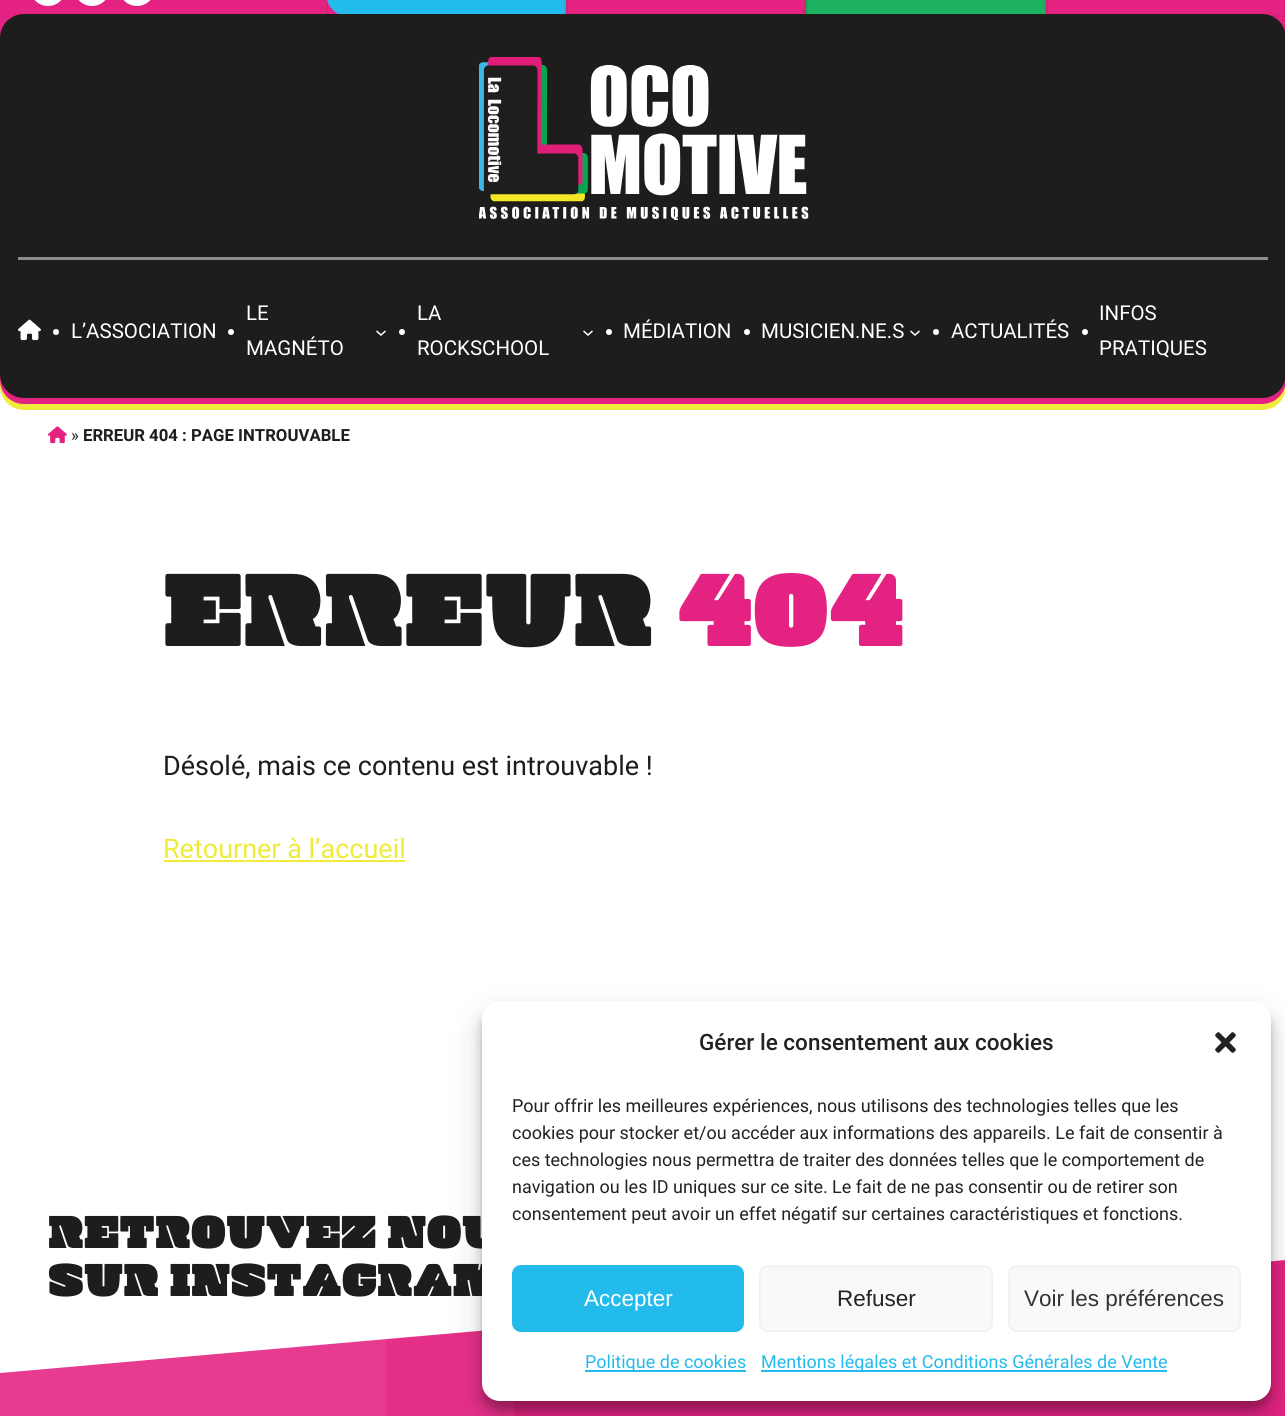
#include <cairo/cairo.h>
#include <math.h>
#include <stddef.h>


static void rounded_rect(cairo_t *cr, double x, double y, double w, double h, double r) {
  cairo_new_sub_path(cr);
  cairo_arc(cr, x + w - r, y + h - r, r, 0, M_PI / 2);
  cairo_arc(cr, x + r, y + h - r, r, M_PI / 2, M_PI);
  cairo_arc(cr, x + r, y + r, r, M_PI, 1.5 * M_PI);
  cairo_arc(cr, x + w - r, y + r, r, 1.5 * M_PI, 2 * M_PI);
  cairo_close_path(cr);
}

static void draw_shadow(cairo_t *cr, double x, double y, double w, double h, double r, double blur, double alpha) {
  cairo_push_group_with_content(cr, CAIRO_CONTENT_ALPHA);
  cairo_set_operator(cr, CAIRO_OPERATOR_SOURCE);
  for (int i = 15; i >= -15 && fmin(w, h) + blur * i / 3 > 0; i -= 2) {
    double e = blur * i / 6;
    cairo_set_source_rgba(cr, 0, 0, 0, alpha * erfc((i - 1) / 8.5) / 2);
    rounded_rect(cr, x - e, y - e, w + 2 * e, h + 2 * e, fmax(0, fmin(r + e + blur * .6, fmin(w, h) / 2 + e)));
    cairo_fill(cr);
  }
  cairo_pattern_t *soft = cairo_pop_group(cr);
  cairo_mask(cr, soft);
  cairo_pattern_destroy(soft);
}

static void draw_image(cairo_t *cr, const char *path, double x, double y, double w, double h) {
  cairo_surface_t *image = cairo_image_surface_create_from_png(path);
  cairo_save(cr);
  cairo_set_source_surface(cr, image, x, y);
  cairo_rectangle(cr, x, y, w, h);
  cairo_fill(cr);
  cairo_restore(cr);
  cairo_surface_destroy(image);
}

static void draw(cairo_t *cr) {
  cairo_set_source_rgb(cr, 1, 1, 1);
  cairo_paint(cr);
  cairo_set_source_rgb(cr, 227 / 255.0, 34 / 255.0, 129 / 255.0);
  cairo_rectangle(cr, 0, 0, 1285, 38);
  cairo_fill(cr);
  cairo_set_source_rgb(cr, 1, 1, 1);
  rounded_rect(cr, 30, -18, 36, 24, 18);
  cairo_fill(cr);
  rounded_rect(cr, 74, -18, 36, 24, 18);
  cairo_fill(cr);
  rounded_rect(cr, 119, -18, 36, 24, 18);
  cairo_fill(cr);
  cairo_set_source_rgb(cr, 35 / 255.0, 186 / 255.0, 236 / 255.0);
  cairo_new_path(cr);
  cairo_move_to(cr, 350, -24);
  cairo_line_to(cr, 566, -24);
  cairo_line_to(cr, 566, 17);
  cairo_line_to(cr, 350, 17);
  cairo_curve_to(cr, 336.5, 17, 326, 6.5, 326, -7);
  cairo_line_to(cr, 326, 0);
  cairo_curve_to(cr, 326, -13.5, 336.5, -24, 350, -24);
  cairo_close_path(cr);
  cairo_fill(cr);
  cairo_rectangle(cr, 327, -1, 238, 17);
  cairo_set_source_rgba(cr, 0, 0, 0, 0.05);
  cairo_stroke(cr);
  cairo_rectangle(cr, 567, -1, 238, 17);
  cairo_set_source_rgb(cr, 216 / 255.0, 32 / 255.0, 123 / 255.0);
  cairo_stroke(cr);
  cairo_set_source_rgb(cr, 28 / 255.0, 177 / 255.0, 94 / 255.0);
  cairo_rectangle(cr, 808, 0, 236, 14);
  cairo_fill(cr);
  cairo_rectangle(cr, 807, -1, 238, 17);
  cairo_set_source_rgb(cr, 27 / 255.0, 168 / 255.0, 89 / 255.0);
  cairo_stroke(cr);
  cairo_rectangle(cr, 1047, -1, 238, 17);
  cairo_set_source_rgb(cr, 216 / 255.0, 32 / 255.0, 123 / 255.0);
  cairo_stroke(cr);
  cairo_set_source_rgb(cr, 240 / 255.0, 235 / 255.0, 58 / 255.0);
  rounded_rect(cr, 0, 290, 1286, 120, 24);
  cairo_fill(cr);
  cairo_set_source_rgb(cr, 227 / 255.0, 34 / 255.0, 129 / 255.0);
  rounded_rect(cr, 0, 284, 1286, 120, 24);
  cairo_fill(cr);
  cairo_set_source_rgb(cr, 29 / 255.0, 29 / 255.0, 27 / 255.0);
  rounded_rect(cr, 0, 14, 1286, 384, 24);
  cairo_fill(cr);
  draw_image(cr, "images/1.png", 479, 57, 330, 163);
  cairo_set_source_rgb(cr, 141 / 255.0, 141 / 255.0, 140 / 255.0);
  cairo_rectangle(cr, 18, 257, 1250, 3);
  cairo_fill(cr);
  draw_image(cr, "images/2.png", 18, 319, 23, 22);
  cairo_set_source_rgb(cr, 1, 1, 1);
  cairo_arc(cr, 56, 332, 3, 0, 2 * M_PI);
  cairo_fill(cr);
  cairo_arc(cr, 231, 332, 3, 0, 2 * M_PI);
  cairo_fill(cr);
  cairo_new_path(cr);
  cairo_move_to(cr, 376.5, 331);
  cairo_line_to(cr, 381, 335);
  cairo_line_to(cr, 385.5, 331);
  cairo_set_line_width(cr, 1.5);
  cairo_stroke(cr);
  cairo_arc(cr, 402, 332, 3, 0, 2 * M_PI);
  cairo_fill(cr);
  cairo_new_path(cr);
  cairo_move_to(cr, 583.5, 331);
  cairo_line_to(cr, 588, 335);
  cairo_line_to(cr, 592.5, 331);
  cairo_stroke(cr);
  cairo_arc(cr, 609, 332, 3, 0, 2 * M_PI);
  cairo_fill(cr);
  cairo_arc(cr, 747, 332, 3, 0, 2 * M_PI);
  cairo_fill(cr);
  cairo_new_path(cr);
  cairo_move_to(cr, 910.5, 331);
  cairo_line_to(cr, 915, 335);
  cairo_line_to(cr, 919.5, 331);
  cairo_stroke(cr);
  cairo_arc(cr, 936, 332, 3, 0, 2 * M_PI);
  cairo_fill(cr);
  cairo_arc(cr, 1085, 332, 3, 0, 2 * M_PI);
  cairo_fill(cr);
  draw_image(cr, "images/3.png", 48, 426, 19, 18);
  cairo_set_source_rgb(cr, 240 / 255.0, 235 / 255.0, 58 / 255.0);
  cairo_rectangle(cr, 164, 860, 241, 2);
  cairo_fill(cr);
  cairo_set_source_rgb(cr, 227 / 255.0, 34 / 255.0, 129 / 255.0);
  cairo_rectangle(cr, 0, 1260, 1285, 156);
  cairo_fill(cr);
  draw_image(cr, "images/4.png", 0, 1330, 515, 86);
  cairo_set_source_rgb(cr, 1, 1, 1);
  cairo_new_path(cr);
  cairo_move_to(cr, 0, 1133);
  cairo_line_to(cr, 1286, 1020);
  cairo_line_to(cr, 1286, 1260);
  cairo_line_to(cr, 0, 1373);
  cairo_close_path(cr);
  cairo_fill(cr);
  cairo_set_source_rgb(cr, 0, 0, 0);
  draw_shadow(cr, 482, 1010, 789, 400, 18, 4.5, 0.23);
  draw_shadow(cr, 482, 1016, 789, 400, 18, 15, 0.19);
  cairo_select_font_face(cr, "Roboto", CAIRO_FONT_SLANT_NORMAL, CAIRO_FONT_WEIGHT_NORMAL);
  cairo_set_font_size(cr, 20.5);
  cairo_set_source_rgb(cr, 1, 1, 1);
  cairo_move_to(cr, 71, 338);
  cairo_show_text(cr, "L’ASSOCIATION");
  cairo_move_to(cr, 246, 320);
  cairo_show_text(cr, "LE");
  cairo_move_to(cr, 246, 355);
  cairo_show_text(cr, "MAGNÉTO");
  cairo_move_to(cr, 417, 320);
  cairo_show_text(cr, "LA");
  cairo_move_to(cr, 417, 355);
  cairo_show_text(cr, "ROCKSCHOOL");
  cairo_move_to(cr, 623, 338);
  cairo_show_text(cr, "MÉDIATION");
  cairo_move_to(cr, 761, 338);
  cairo_show_text(cr, "MUSICIEN.NE.S");
  cairo_move_to(cr, 951, 338);
  cairo_show_text(cr, "ACTUALITÉS");
  cairo_move_to(cr, 1099, 320);
  cairo_show_text(cr, "INFOS");
  cairo_move_to(cr, 1099, 355);
  cairo_show_text(cr, "PRATIQUES");
  cairo_set_font_size(cr, 16.75);
  cairo_set_source_rgb(cr, 29 / 255.0, 29 / 255.0, 27 / 255.0);
  cairo_move_to(cr, 71, 441);
  cairo_show_text(cr, "»");
  cairo_select_font_face(cr, "Roboto", CAIRO_FONT_SLANT_NORMAL, CAIRO_FONT_WEIGHT_BOLD);
  cairo_move_to(cr, 83, 441);
  cairo_show_text(cr, "ERREUR 404 : PAGE INTROUVABLE");
  cairo_select_font_face(cr, "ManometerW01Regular", CAIRO_FONT_SLANT_NORMAL, CAIRO_FONT_WEIGHT_NORMAL);
  cairo_set_font_size(cr, 108);
  cairo_move_to(cr, 163, 646);
  cairo_show_text(cr, "ERREUR");
  cairo_set_source_rgb(cr, 227 / 255.0, 34 / 255.0, 129 / 255.0);
  cairo_move_to(cr, 677, 646);
  cairo_show_text(cr, "404");
  cairo_select_font_face(cr, "Roboto", CAIRO_FONT_SLANT_NORMAL, CAIRO_FONT_WEIGHT_NORMAL);
  cairo_set_font_size(cr, 27);
  cairo_set_source_rgb(cr, 29 / 255.0, 29 / 255.0, 27 / 255.0);
  cairo_move_to(cr, 163, 775);
  cairo_show_text(cr, "Désolé, mais ce contenu est introuvable !");
  cairo_set_source_rgb(cr, 240 / 255.0, 235 / 255.0, 58 / 255.0);
  cairo_move_to(cr, 163, 858);
  cairo_show_text(cr, "Retourner à l’accueil");
  cairo_select_font_face(cr, "ManometerW01Regular", CAIRO_FONT_SLANT_NORMAL, CAIRO_FONT_WEIGHT_NORMAL);
  cairo_set_font_size(cr, 48);
  cairo_set_source_rgb(cr, 29 / 255.0, 29 / 255.0, 27 / 255.0);
  cairo_move_to(cr, 48, 1248);
  cairo_show_text(cr, "RETROUVEZ NOU");
  cairo_move_to(cr, 48, 1296);
  cairo_show_text(cr, "SUR INSTAGRAM");
  cairo_set_source_rgb(cr, 1, 1, 1);
  rounded_rect(cr, 482, 1001, 789, 400, 18);
  cairo_fill(cr);
  cairo_select_font_face(cr, "Roboto Medium", CAIRO_FONT_SLANT_NORMAL, CAIRO_FONT_WEIGHT_NORMAL);
  cairo_set_font_size(cr, 22.5);
  cairo_set_source_rgb(cr, 34 / 255.0, 34 / 255.0, 34 / 255.0);
  cairo_move_to(cr, 699, 1050);
  cairo_show_text(cr, "Gérer le consentement aux cookies");
  draw_image(cr, "images/5.png", 1215, 1032, 21, 21);
  cairo_select_font_face(cr, "Roboto", CAIRO_FONT_SLANT_NORMAL, CAIRO_FONT_WEIGHT_NORMAL);
  cairo_set_font_size(cr, 18);
  cairo_move_to(cr, 512, 1112);
  cairo_show_text(cr, "Pour offrir les meilleures expériences, nous utilisons des technologies telles que les");
  cairo_move_to(cr, 512, 1139);
  cairo_show_text(cr, "cookies pour stocker et/ou accéder aux informations des appareils. Le fait de consentir à");
  cairo_move_to(cr, 512, 1166);
  cairo_show_text(cr, "ces technologies nous permettra de traiter des données telles que le comportement de");
  cairo_move_to(cr, 512, 1193);
  cairo_show_text(cr, "navigation ou les ID uniques sur ce site. Le fait de ne pas consentir ou de retirer son");
  cairo_move_to(cr, 512, 1220);
  cairo_show_text(cr, "consentement peut avoir un effet négatif sur certaines caractéristiques et fonctions.");
  cairo_set_source_rgb(cr, 35 / 255.0, 186 / 255.0, 236 / 255.0);
  rounded_rect(cr, 513, 1266, 230, 65, 8);
  cairo_fill_preserve(cr);
  cairo_set_line_width(cr, 2);
  cairo_stroke(cr);
  cairo_select_font_face(cr, "Liberation Sans", CAIRO_FONT_SLANT_NORMAL, CAIRO_FONT_WEIGHT_NORMAL);
  cairo_set_font_size(cr, 22.5);
  cairo_set_source_rgb(cr, 1, 1, 1);
  cairo_move_to(cr, 584, 1306);
  cairo_show_text(cr, "Accepter");
  cairo_set_source_rgb(cr, 249 / 255.0, 249 / 255.0, 249 / 255.0);
  rounded_rect(cr, 760, 1266, 232, 65, 8);
  cairo_fill_preserve(cr);
  cairo_set_source_rgb(cr, 242 / 255.0, 242 / 255.0, 242 / 255.0);
  cairo_stroke(cr);
  cairo_set_source_rgb(cr, 34 / 255.0, 34 / 255.0, 34 / 255.0);
  cairo_move_to(cr, 837, 1306);
  cairo_show_text(cr, "Refuser");
  cairo_set_source_rgb(cr, 249 / 255.0, 249 / 255.0, 249 / 255.0);
  rounded_rect(cr, 1009, 1266, 231, 65, 8);
  cairo_fill_preserve(cr);
  cairo_set_source_rgb(cr, 242 / 255.0, 242 / 255.0, 242 / 255.0);
  cairo_stroke(cr);
  cairo_set_source_rgb(cr, 51 / 255.0, 51 / 255.0, 51 / 255.0);
  cairo_move_to(cr, 1024, 1306);
  cairo_show_text(cr, "Voir les préférences");
  cairo_set_source_rgb(cr, 35 / 255.0, 186 / 255.0, 236 / 255.0);
  cairo_rectangle(cr, 585, 1370, 161, 2);
  cairo_fill(cr);
  cairo_select_font_face(cr, "Roboto", CAIRO_FONT_SLANT_NORMAL, CAIRO_FONT_WEIGHT_NORMAL);
  cairo_set_font_size(cr, 18);
  cairo_move_to(cr, 585, 1368);
  cairo_show_text(cr, "Politique de cookies");
  cairo_rectangle(cr, 761, 1370, 406, 2);
  cairo_fill(cr);
  cairo_move_to(cr, 761, 1368);
  cairo_show_text(cr, "Mentions légales et Conditions Générales de Vente");
}

int main(void) {
  cairo_surface_t *surface = cairo_image_surface_create(CAIRO_FORMAT_RGB24, 1285, 1416);
  cairo_t *cr = cairo_create(surface);
  cairo_font_options_t *options = cairo_font_options_create();
  cairo_font_options_set_hint_metrics(options, CAIRO_HINT_METRICS_OFF);
  cairo_font_options_set_hint_style(options, CAIRO_HINT_STYLE_NONE);
  cairo_set_font_options(cr, options);
  cairo_set_miter_limit(cr, 4);
  draw(cr);
  cairo_surface_write_to_png(surface, "out.png");
  cairo_font_options_destroy(options);
  cairo_destroy(cr);
  cairo_surface_destroy(surface);
  return 0;
}
